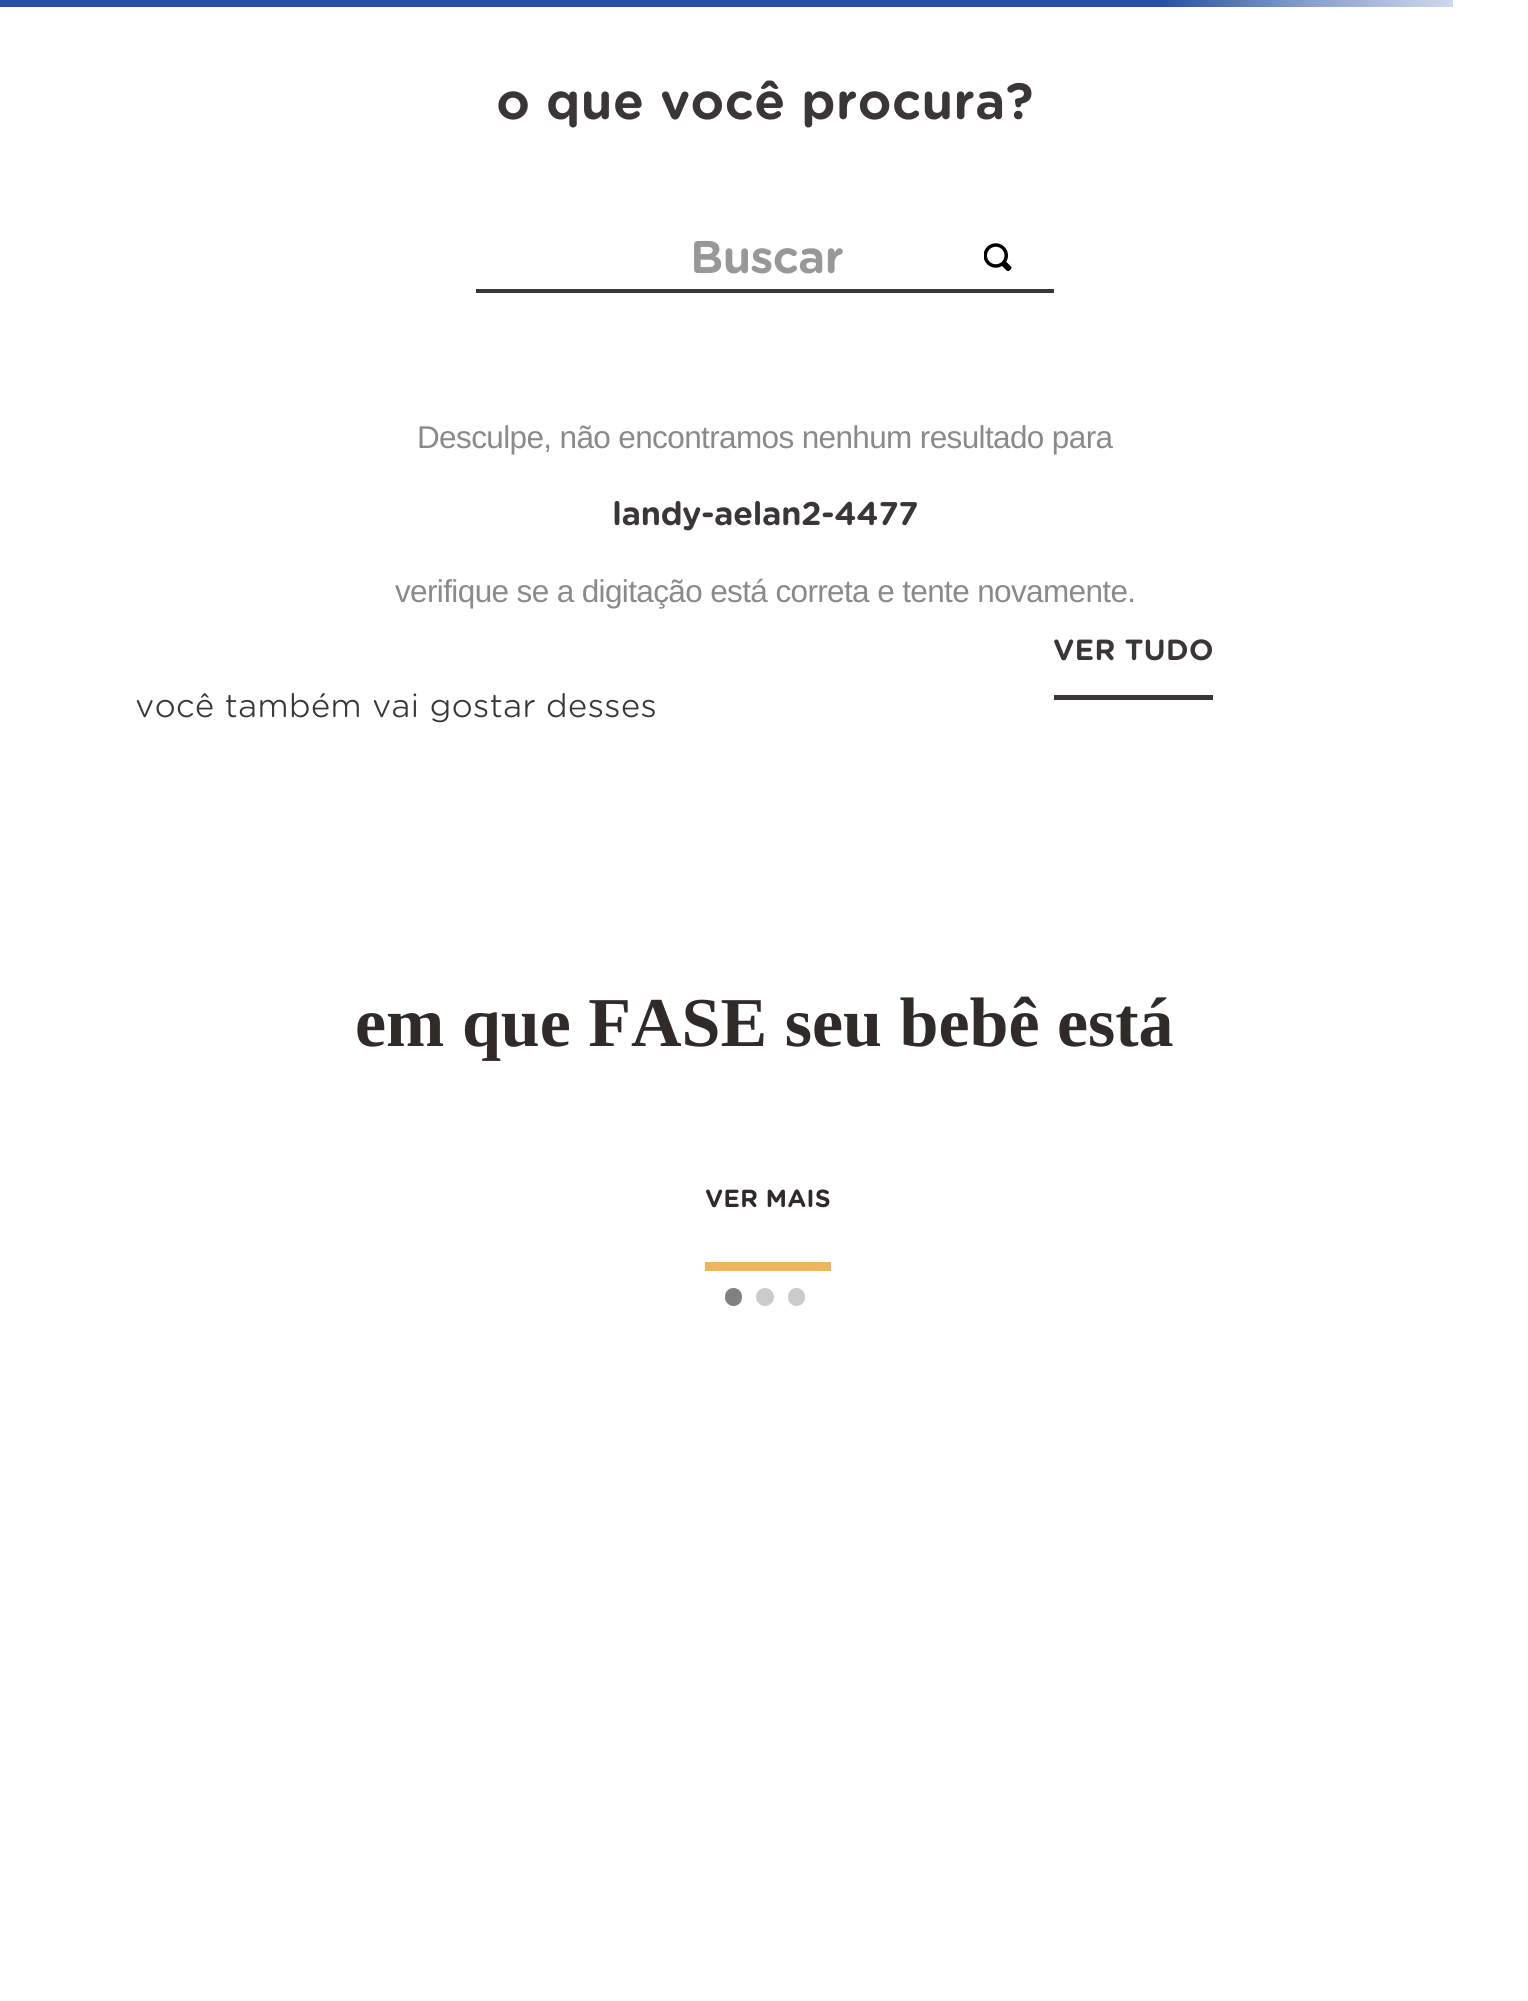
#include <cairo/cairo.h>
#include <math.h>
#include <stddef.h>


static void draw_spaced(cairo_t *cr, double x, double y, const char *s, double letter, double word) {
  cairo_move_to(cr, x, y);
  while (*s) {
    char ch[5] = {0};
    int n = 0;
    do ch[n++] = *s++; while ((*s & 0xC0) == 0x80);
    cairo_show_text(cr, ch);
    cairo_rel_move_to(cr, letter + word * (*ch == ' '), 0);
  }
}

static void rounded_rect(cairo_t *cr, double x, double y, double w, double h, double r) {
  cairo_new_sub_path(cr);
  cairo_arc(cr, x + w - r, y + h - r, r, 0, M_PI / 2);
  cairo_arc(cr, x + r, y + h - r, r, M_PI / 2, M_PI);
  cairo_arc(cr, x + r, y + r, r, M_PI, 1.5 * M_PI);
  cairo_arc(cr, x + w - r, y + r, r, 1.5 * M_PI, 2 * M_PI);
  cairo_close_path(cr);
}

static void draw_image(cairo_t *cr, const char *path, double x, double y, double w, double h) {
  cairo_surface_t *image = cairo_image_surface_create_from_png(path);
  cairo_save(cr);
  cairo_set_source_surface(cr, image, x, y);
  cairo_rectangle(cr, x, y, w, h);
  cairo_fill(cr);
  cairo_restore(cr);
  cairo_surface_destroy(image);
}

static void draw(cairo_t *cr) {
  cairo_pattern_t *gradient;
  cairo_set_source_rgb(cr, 1, 1, 1);
  cairo_paint(cr);
  gradient = cairo_pattern_create_linear(0, 3.5, 1453, 3.5);
  cairo_pattern_add_color_stop_rgba(gradient, 0.8, 39 / 255.0, 81 / 255.0, 163 / 255.0, 1);
  cairo_pattern_add_color_stop_rgba(gradient, 0.9, 135 / 255.0, 159 / 255.0, 204 / 255.0, 1);
  cairo_pattern_add_color_stop_rgba(gradient, 1, 207 / 255.0, 216 / 255.0, 235 / 255.0, 1);
  cairo_set_source(cr, gradient);
  cairo_pattern_destroy(gradient);
  cairo_rectangle(cr, 0, 0, 1453, 7);
  cairo_fill(cr);
  cairo_set_source_rgb(cr, 58 / 255.0, 54 / 255.0, 53 / 255.0);
  cairo_rectangle(cr, 476, 289, 578, 4);
  cairo_fill(cr);
  draw_image(cr, "images/1.png", 984, 243, 28, 28);
  cairo_rectangle(cr, 1054, 695, 159, 5);
  cairo_fill(cr);
  cairo_set_source_rgb(cr, 240 / 255.0, 180 / 255.0, 95 / 255.0);
  cairo_rectangle(cr, 705, 1262, 126, 9);
  cairo_fill(cr);
  cairo_set_source_rgb(cr, 129 / 255.0, 129 / 255.0, 129 / 255.0);
  rounded_rect(cr, 725, 1288, 17, 18, 8.5);
  cairo_fill(cr);
  cairo_set_source_rgb(cr, 202 / 255.0, 203 / 255.0, 204 / 255.0);
  cairo_arc(cr, 765, 1297, 9, 0, 2 * M_PI);
  cairo_fill(cr);
  rounded_rect(cr, 788, 1288, 17, 18, 8.5);
  cairo_fill(cr);
  cairo_select_font_face(cr, "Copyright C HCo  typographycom", CAIRO_FONT_SLANT_NORMAL, CAIRO_FONT_WEIGHT_NORMAL);
  cairo_set_font_size(cr, 49);
  cairo_set_source_rgb(cr, 58 / 255.0, 54 / 255.0, 53 / 255.0);
  cairo_move_to(cr, 496, 119);
  cairo_show_text(cr, "o que você procura?");
  cairo_set_font_size(cr, 44);
  cairo_set_source_rgb(cr, 151 / 255.0, 152 / 255.0, 153 / 255.0);
  draw_spaced(cr, 690, 273, "Buscar", -1, 0);
  cairo_select_font_face(cr, "Liberation Sans", CAIRO_FONT_SLANT_NORMAL, CAIRO_FONT_WEIGHT_NORMAL);
  cairo_set_font_size(cr, 31.5);
  cairo_set_source_rgb(cr, 138 / 255.0, 138 / 255.0, 138 / 255.0);
  draw_spaced(cr, 417, 448, "Desculpe, não encontramos nenhum resultado para", -0.63, 0);
  cairo_select_font_face(cr, "Copyright C HCo  typographycom", CAIRO_FONT_SLANT_NORMAL, CAIRO_FONT_WEIGHT_NORMAL);
  cairo_set_source_rgb(cr, 58 / 255.0, 54 / 255.0, 53 / 255.0);
  draw_spaced(cr, 612, 525, "landy-aelan2-4477", -0.63, 0);
  cairo_select_font_face(cr, "Liberation Sans", CAIRO_FONT_SLANT_NORMAL, CAIRO_FONT_WEIGHT_NORMAL);
  cairo_set_source_rgb(cr, 138 / 255.0, 138 / 255.0, 138 / 255.0);
  draw_spaced(cr, 395, 602, "verifique se a digitação está correta e tente novamente.", -0.63, 0);
  cairo_select_font_face(cr, "Copyright C HCo  typographycom", CAIRO_FONT_SLANT_NORMAL, CAIRO_FONT_WEIGHT_NORMAL);
  cairo_set_font_size(cr, 28);
  cairo_set_source_rgb(cr, 58 / 255.0, 54 / 255.0, 53 / 255.0);
  cairo_move_to(cr, 1053, 660);
  cairo_show_text(cr, "VER TUDO");
  cairo_select_font_face(cr, "Copyright C HCo  typographycom Light", CAIRO_FONT_SLANT_NORMAL, CAIRO_FONT_WEIGHT_NORMAL);
  cairo_set_font_size(cr, 31.5);
  cairo_move_to(cr, 135, 717);
  cairo_show_text(cr, "você também vai gostar desses");
  cairo_select_font_face(cr, "Liberation Serif", CAIRO_FONT_SLANT_NORMAL, CAIRO_FONT_WEIGHT_BOLD);
  cairo_set_font_size(cr, 70);
  cairo_set_source_rgb(cr, 48 / 255.0, 42 / 255.0, 41 / 255.0);
  cairo_move_to(cr, 355, 1046);
  cairo_show_text(cr, "em que FASE seu bebê está");
  cairo_select_font_face(cr, "Copyright C HCo  typographycom", CAIRO_FONT_SLANT_NORMAL, CAIRO_FONT_WEIGHT_NORMAL);
  cairo_set_font_size(cr, 23.75);
  cairo_move_to(cr, 705, 1207);
  cairo_show_text(cr, "VER MAIS");
}

int main(void) {
  cairo_surface_t *surface = cairo_image_surface_create(CAIRO_FORMAT_RGB24, 1528, 2001);
  cairo_t *cr = cairo_create(surface);
  cairo_font_options_t *options = cairo_font_options_create();
  cairo_font_options_set_hint_metrics(options, CAIRO_HINT_METRICS_OFF);
  cairo_font_options_set_hint_style(options, CAIRO_HINT_STYLE_NONE);
  cairo_set_font_options(cr, options);
  cairo_set_miter_limit(cr, 4);
  draw(cr);
  cairo_surface_write_to_png(surface, "out.png");
  cairo_font_options_destroy(options);
  cairo_destroy(cr);
  cairo_surface_destroy(surface);
  return 0;
}
